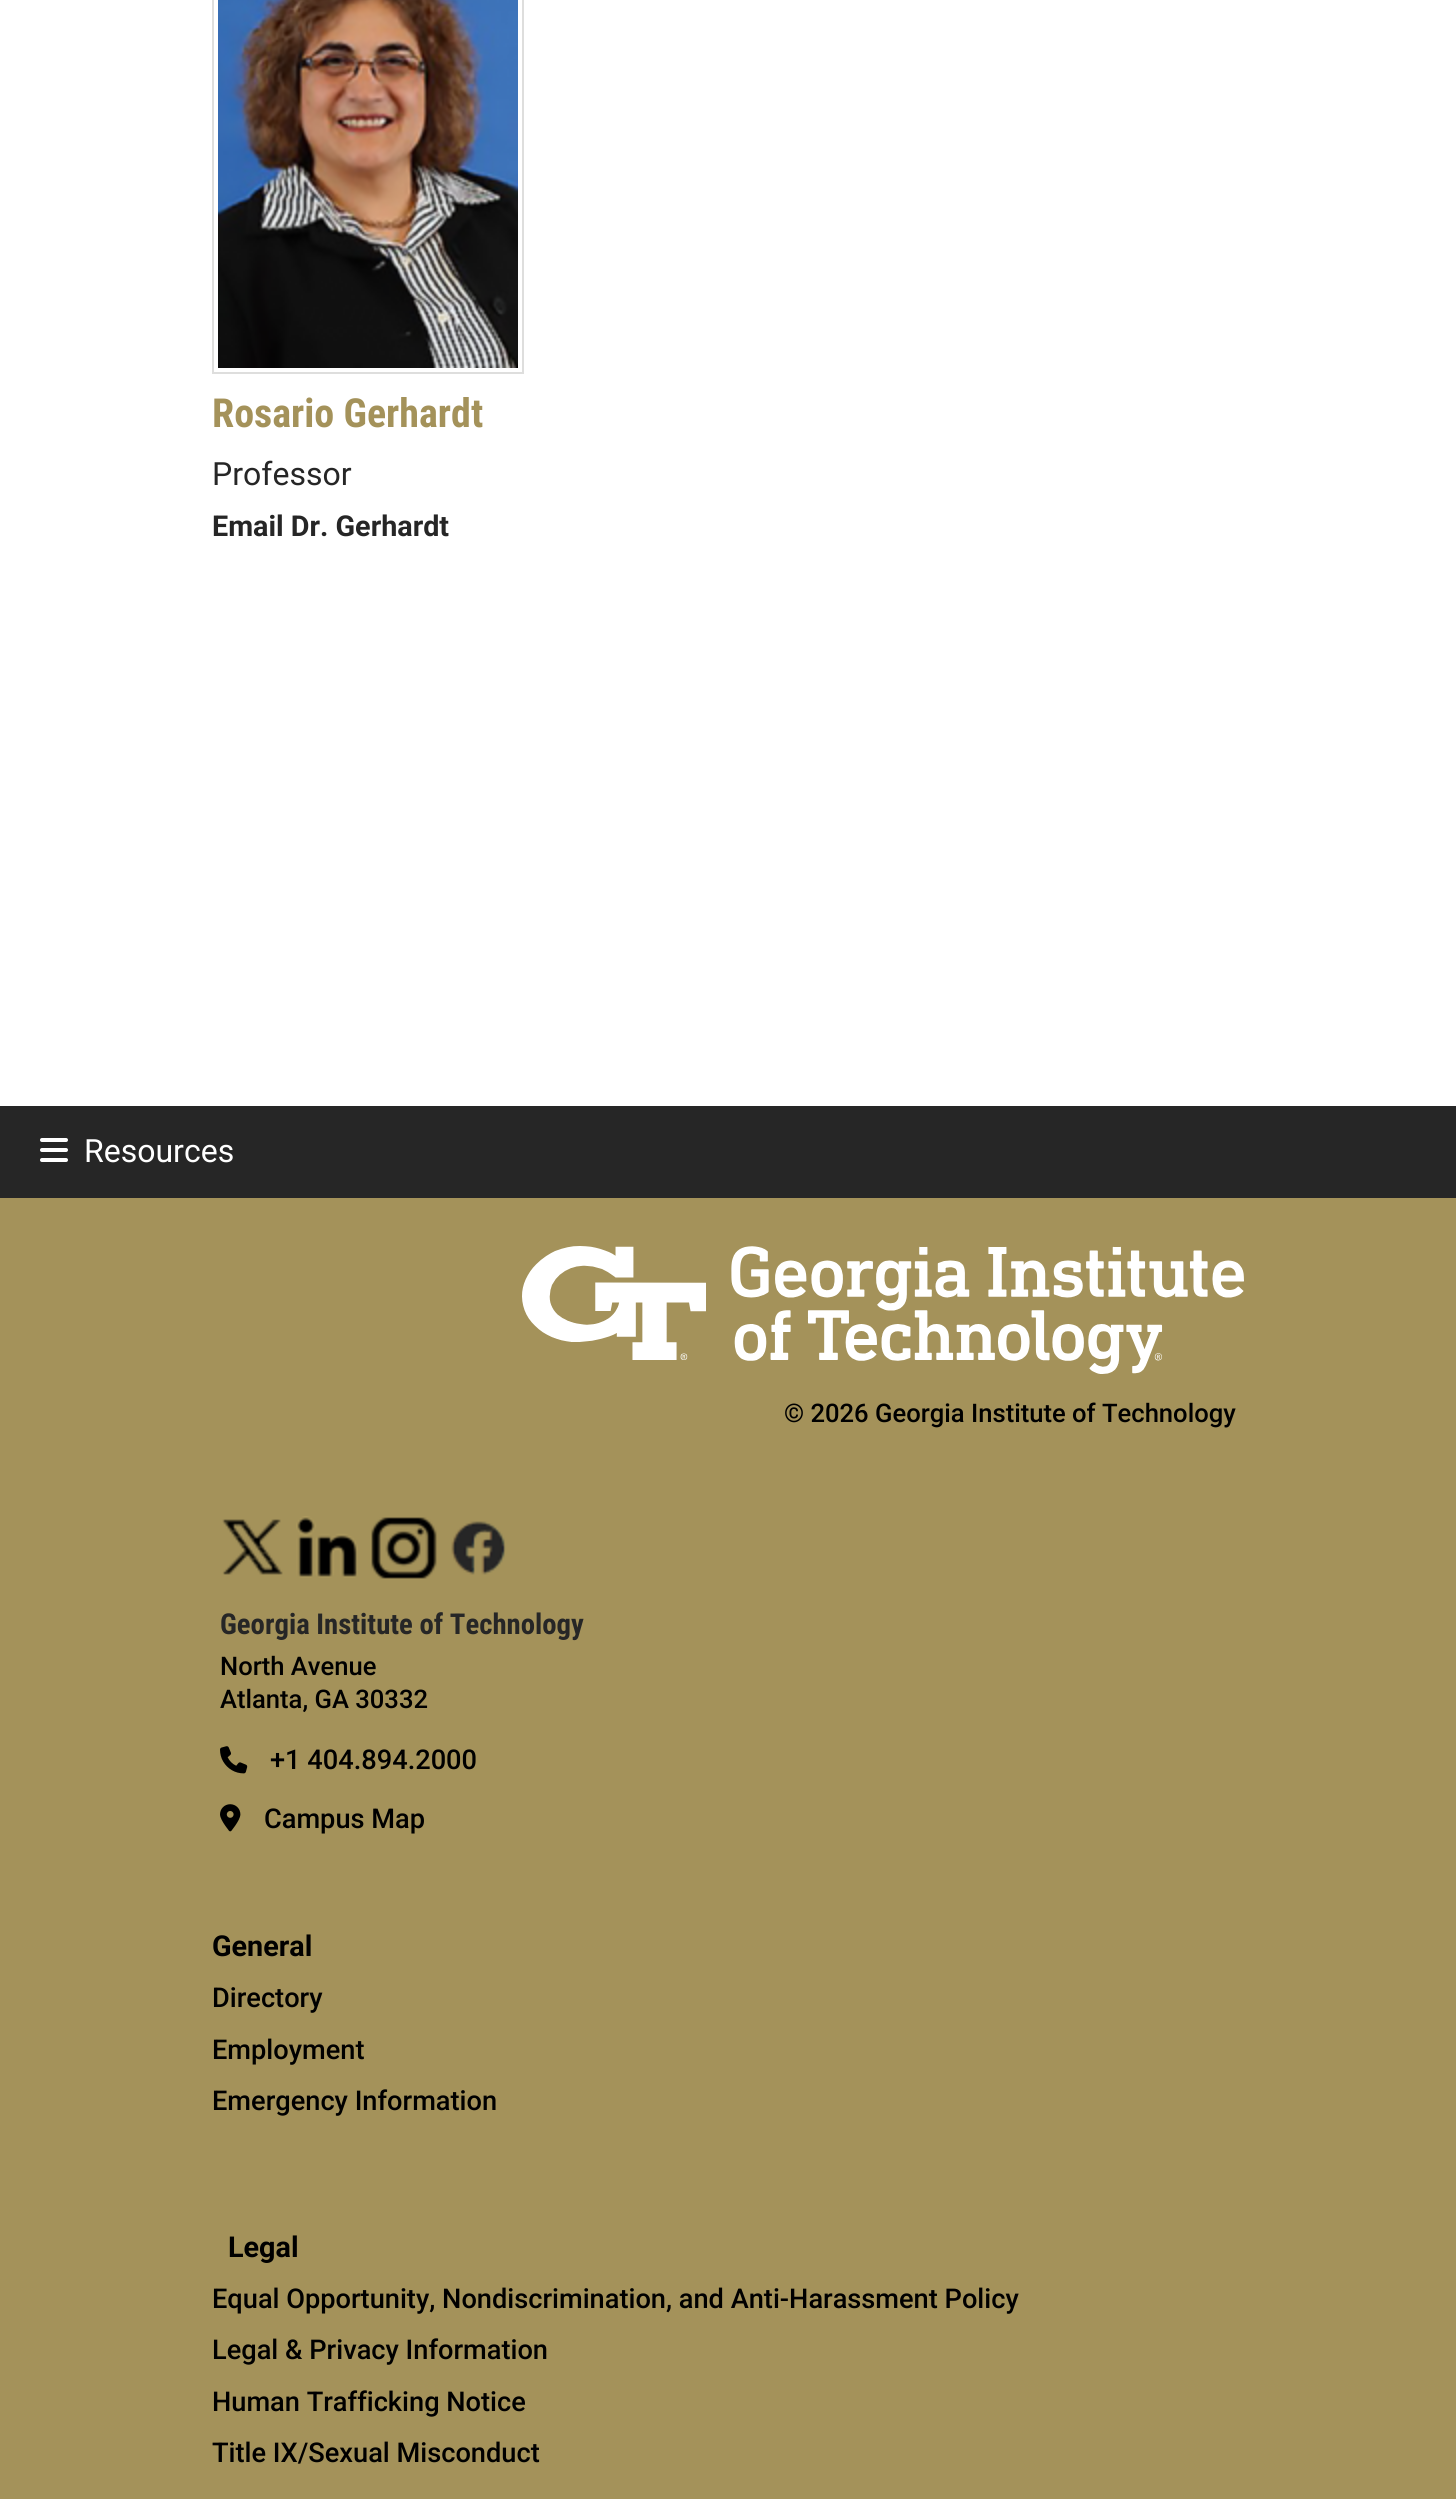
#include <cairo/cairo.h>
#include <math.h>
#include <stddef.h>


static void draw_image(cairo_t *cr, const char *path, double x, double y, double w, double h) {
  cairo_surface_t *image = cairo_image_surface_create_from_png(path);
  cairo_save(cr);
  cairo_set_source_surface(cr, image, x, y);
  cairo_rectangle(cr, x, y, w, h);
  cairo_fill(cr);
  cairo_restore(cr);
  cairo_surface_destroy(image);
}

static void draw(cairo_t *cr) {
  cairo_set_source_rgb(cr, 1, 1, 1);
  cairo_paint(cr);
  cairo_rectangle(cr, 213, -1, 310, 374);
  cairo_set_source_rgb(cr, 222 / 255.0, 222 / 255.0, 221 / 255.0);
  cairo_stroke(cr);
  draw_image(cr, "images/1.png", 218, 0, 300, 368);
  cairo_set_source_rgb(cr, 38 / 255.0, 38 / 255.0, 38 / 255.0);
  cairo_rectangle(cr, 0, 1106, 1456, 92);
  cairo_fill(cr);
  draw_image(cr, "images/2.png", 40, 1138, 28, 24);
  cairo_set_source_rgb(cr, 164 / 255.0, 146 / 255.0, 90 / 255.0);
  cairo_rectangle(cr, 0, 1198, 1456, 1301);
  cairo_fill(cr);
  draw_image(cr, "images/3.png", 522, 1246, 722, 128);
  draw_image(cr, "images/4.png", 222, 1519, 61, 56);
  draw_image(cr, "images/5.png", 296, 1516, 62, 62);
  draw_image(cr, "images/6.png", 371, 1517, 66, 62);
  draw_image(cr, "images/7.png", 451, 1521, 55, 54);
  draw_image(cr, "images/8.png", 220, 1746, 28, 28);
  draw_image(cr, "images/9.png", 220, 1804, 21, 28);
  cairo_select_font_face(cr, "Roboto Condensed", CAIRO_FONT_SLANT_NORMAL, CAIRO_FONT_WEIGHT_BOLD);
  cairo_set_font_size(cr, 40);
  cairo_move_to(cr, 212, 427);
  cairo_show_text(cr, "Rosario Gerhardt");
  cairo_select_font_face(cr, "Roboto", CAIRO_FONT_SLANT_NORMAL, CAIRO_FONT_WEIGHT_NORMAL);
  cairo_set_font_size(cr, 32);
  cairo_set_source_rgb(cr, 38 / 255.0, 38 / 255.0, 38 / 255.0);
  cairo_move_to(cr, 212, 485);
  cairo_show_text(cr, "Professor");
  cairo_select_font_face(cr, "Roboto", CAIRO_FONT_SLANT_NORMAL, CAIRO_FONT_WEIGHT_BOLD);
  cairo_set_font_size(cr, 28.75);
  cairo_move_to(cr, 212, 536);
  cairo_show_text(cr, "Email Dr. Gerhardt");
  cairo_select_font_face(cr, "Roboto", CAIRO_FONT_SLANT_NORMAL, CAIRO_FONT_WEIGHT_NORMAL);
  cairo_set_font_size(cr, 32);
  cairo_set_source_rgb(cr, 1, 1, 1);
  cairo_move_to(cr, 84, 1162);
  cairo_show_text(cr, "Resources");
  cairo_select_font_face(cr, "Roboto Medium", CAIRO_FONT_SLANT_NORMAL, CAIRO_FONT_WEIGHT_NORMAL);
  cairo_set_font_size(cr, 25.6);
  cairo_set_source_rgb(cr, 0, 0, 0);
  cairo_move_to(cr, 784, 1422);
  cairo_show_text(cr, "© 2026 Georgia Institute of Technology");
  cairo_select_font_face(cr, "Roboto Condensed", CAIRO_FONT_SLANT_NORMAL, CAIRO_FONT_WEIGHT_BOLD);
  cairo_set_font_size(cr, 28.75);
  cairo_set_source_rgb(cr, 38 / 255.0, 38 / 255.0, 38 / 255.0);
  cairo_move_to(cr, 220, 1634);
  cairo_show_text(cr, "Georgia Institute of Technology");
  cairo_select_font_face(cr, "Roboto Medium", CAIRO_FONT_SLANT_NORMAL, CAIRO_FONT_WEIGHT_NORMAL);
  cairo_set_font_size(cr, 25.6);
  cairo_set_source_rgb(cr, 0, 0, 0);
  cairo_move_to(cr, 220, 1675);
  cairo_show_text(cr, "North Avenue");
  cairo_move_to(cr, 220, 1708);
  cairo_show_text(cr, "Atlanta, GA 30332");
  cairo_set_font_size(cr, 27.2);
  cairo_move_to(cr, 270, 1769);
  cairo_show_text(cr, "+1 404.894.2000");
  cairo_move_to(cr, 264, 1828);
  cairo_show_text(cr, "Campus Map");
  cairo_select_font_face(cr, "Roboto", CAIRO_FONT_SLANT_NORMAL, CAIRO_FONT_WEIGHT_BOLD);
  cairo_set_font_size(cr, 28.75);
  cairo_move_to(cr, 212, 1956);
  cairo_show_text(cr, "General");
  cairo_select_font_face(cr, "Roboto Medium", CAIRO_FONT_SLANT_NORMAL, CAIRO_FONT_WEIGHT_NORMAL);
  cairo_set_font_size(cr, 27.2);
  cairo_move_to(cr, 212, 2007);
  cairo_show_text(cr, "Directory");
  cairo_move_to(cr, 212, 2059);
  cairo_show_text(cr, "Employment");
  cairo_move_to(cr, 212, 2110);
  cairo_show_text(cr, "Emergency Information");
  cairo_select_font_face(cr, "Roboto", CAIRO_FONT_SLANT_NORMAL, CAIRO_FONT_WEIGHT_BOLD);
  cairo_set_font_size(cr, 28.75);
  cairo_move_to(cr, 228, 2257);
  cairo_show_text(cr, "Legal");
  cairo_select_font_face(cr, "Roboto Medium", CAIRO_FONT_SLANT_NORMAL, CAIRO_FONT_WEIGHT_NORMAL);
  cairo_set_font_size(cr, 27.2);
  cairo_move_to(cr, 212, 2308);
  cairo_show_text(cr, "Equal Opportunity, Nondiscrimination, and Anti-Harassment Policy");
  cairo_move_to(cr, 212, 2359);
  cairo_show_text(cr, "Legal & Privacy Information");
  cairo_move_to(cr, 212, 2411);
  cairo_show_text(cr, "Human Trafficking Notice");
  cairo_move_to(cr, 212, 2462);
  cairo_show_text(cr, "Title IX/Sexual Misconduct");
}

int main(void) {
  cairo_surface_t *surface = cairo_image_surface_create(CAIRO_FORMAT_RGB24, 1456, 2499);
  cairo_t *cr = cairo_create(surface);
  cairo_font_options_t *options = cairo_font_options_create();
  cairo_font_options_set_hint_metrics(options, CAIRO_HINT_METRICS_OFF);
  cairo_font_options_set_hint_style(options, CAIRO_HINT_STYLE_NONE);
  cairo_set_font_options(cr, options);
  cairo_set_miter_limit(cr, 4);
  draw(cr);
  cairo_surface_write_to_png(surface, "out.png");
  cairo_font_options_destroy(options);
  cairo_destroy(cr);
  cairo_surface_destroy(surface);
  return 0;
}
